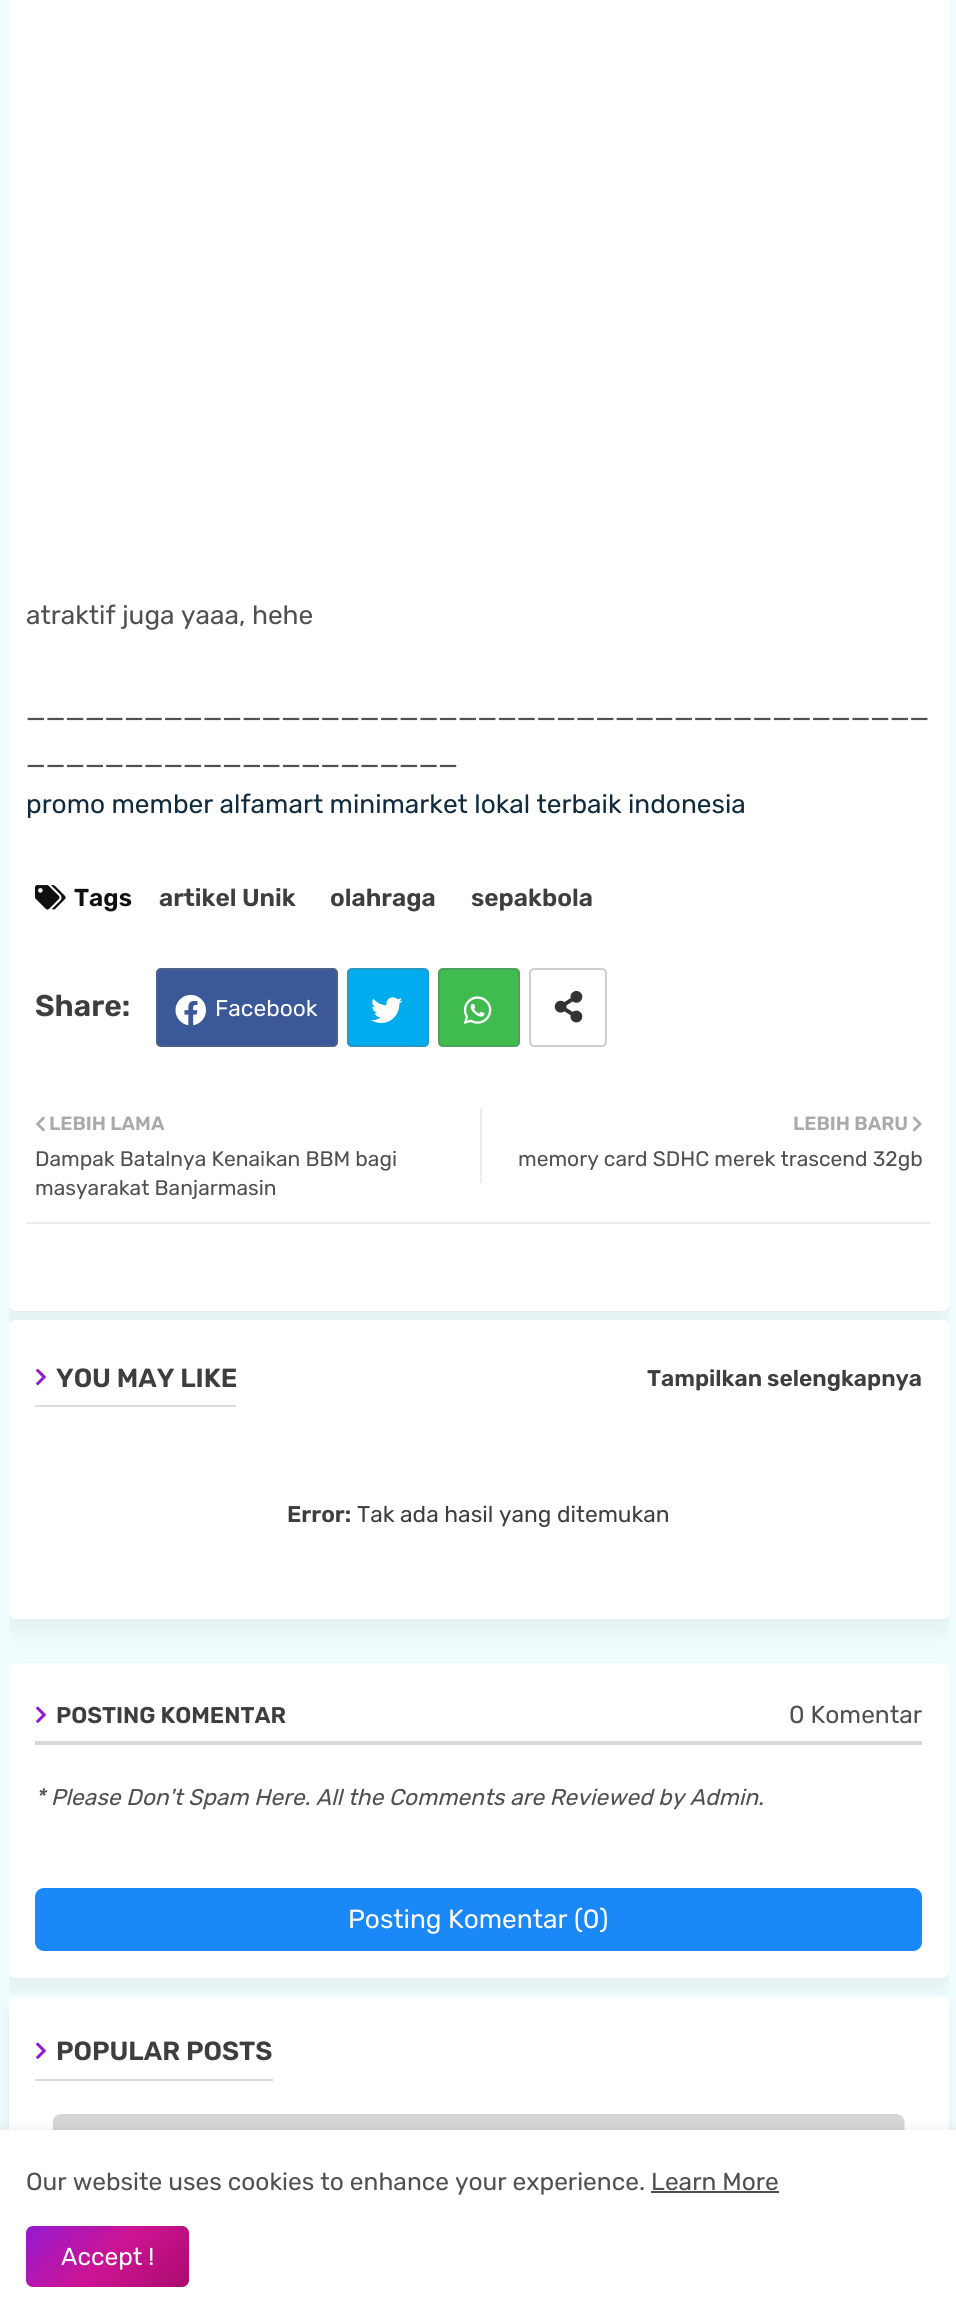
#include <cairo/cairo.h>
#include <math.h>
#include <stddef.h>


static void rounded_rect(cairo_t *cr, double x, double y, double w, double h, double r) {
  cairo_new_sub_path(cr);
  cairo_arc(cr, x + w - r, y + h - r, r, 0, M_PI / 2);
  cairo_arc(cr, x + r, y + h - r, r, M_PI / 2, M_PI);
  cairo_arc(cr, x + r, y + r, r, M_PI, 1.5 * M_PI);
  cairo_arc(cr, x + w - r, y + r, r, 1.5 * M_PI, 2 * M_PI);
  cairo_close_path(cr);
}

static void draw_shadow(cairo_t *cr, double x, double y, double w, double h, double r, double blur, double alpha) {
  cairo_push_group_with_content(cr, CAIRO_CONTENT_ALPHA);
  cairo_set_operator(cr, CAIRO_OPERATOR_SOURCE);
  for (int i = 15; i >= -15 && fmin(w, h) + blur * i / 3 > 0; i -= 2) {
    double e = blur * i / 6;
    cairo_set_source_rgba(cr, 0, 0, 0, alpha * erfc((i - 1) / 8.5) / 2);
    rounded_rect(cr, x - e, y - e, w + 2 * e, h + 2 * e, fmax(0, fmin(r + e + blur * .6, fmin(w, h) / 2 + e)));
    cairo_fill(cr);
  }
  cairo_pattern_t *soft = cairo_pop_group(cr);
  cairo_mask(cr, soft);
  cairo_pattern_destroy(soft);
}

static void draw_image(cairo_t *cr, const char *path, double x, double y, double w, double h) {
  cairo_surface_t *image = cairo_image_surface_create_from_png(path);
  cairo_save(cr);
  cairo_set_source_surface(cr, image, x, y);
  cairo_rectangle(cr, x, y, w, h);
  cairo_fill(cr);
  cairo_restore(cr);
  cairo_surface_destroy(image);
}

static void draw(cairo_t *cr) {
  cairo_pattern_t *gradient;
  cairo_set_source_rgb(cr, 240 / 255.0, 253 / 255.0, 1);
  cairo_paint(cr);
  cairo_save(cr);
  cairo_rectangle(cr, 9, 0, 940, 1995);
  cairo_clip(cr);
  cairo_set_source_rgb(cr, 0, 0, 0);
  draw_shadow(cr, 7, -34, 940, 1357, 7, 9, 0.06);
  cairo_restore(cr);
  cairo_set_source_rgb(cr, 1, 1, 1);
  rounded_rect(cr, 9, -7, 940, 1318, 7);
  cairo_fill(cr);
  draw_image(cr, "images/1.png", 35, 885, 31, 25);
  cairo_set_source_rgb(cr, 59 / 255.0, 89 / 255.0, 153 / 255.0);
  rounded_rect(cr, 156, 968, 182, 79, 5);
  cairo_fill(cr);
  rounded_rect(cr, 157, 969, 180, 77, 4);
  cairo_set_source_rgba(cr, 110 / 255.0, 110 / 255.0, 110 / 255.0, 0.33);
  cairo_stroke(cr);
  draw_image(cr, "images/2.png", 175, 994, 31, 32);
  cairo_set_source_rgb(cr, 0, 172 / 255.0, 238 / 255.0);
  rounded_rect(cr, 347, 968, 82, 79, 5);
  cairo_fill(cr);
  rounded_rect(cr, 348, 969, 80, 77, 4);
  cairo_set_source_rgba(cr, 110 / 255.0, 110 / 255.0, 110 / 255.0, 0.33);
  cairo_stroke(cr);
  draw_image(cr, "images/3.png", 371, 997, 32, 26);
  cairo_set_source_rgb(cr, 63 / 255.0, 187 / 255.0, 80 / 255.0);
  rounded_rect(cr, 438, 968, 82, 79, 5);
  cairo_fill(cr);
  rounded_rect(cr, 439, 969, 80, 77, 4);
  cairo_set_source_rgba(cr, 110 / 255.0, 110 / 255.0, 110 / 255.0, 0.33);
  cairo_stroke(cr);
  draw_image(cr, "images/4.png", 463, 996, 29, 28);
  rounded_rect(cr, 530, 969, 76, 77, 4);
  cairo_set_source_rgb(cr, 207 / 255.0, 207 / 255.0, 207 / 255.0);
  cairo_stroke(cr);
  draw_image(cr, "images/5.png", 554, 990, 29, 33);
  cairo_set_source_rgb(cr, 236 / 255.0, 236 / 255.0, 236 / 255.0);
  cairo_rectangle(cr, 26, 1222, 905, 2);
  cairo_fill(cr);
  draw_image(cr, "images/6.png", 36, 1116, 9, 16);
  cairo_rectangle(cr, 480, 1108, 2, 75);
  cairo_fill(cr);
  draw_image(cr, "images/7.png", 912, 1116, 10, 16);
  cairo_save(cr);
  cairo_rectangle(cr, 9, 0, 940, 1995);
  cairo_clip(cr);
  cairo_set_source_rgb(cr, 0, 0, 0);
  draw_shadow(cr, 7, 1332, 940, 299, 7, 9, 0.06);
  cairo_restore(cr);
  cairo_set_source_rgb(cr, 1, 1, 1);
  rounded_rect(cr, 9, 1320, 940, 299, 7);
  cairo_fill(cr);
  cairo_set_source_rgb(cr, 219 / 255.0, 219 / 255.0, 219 / 255.0);
  cairo_rectangle(cr, 35, 1405, 201, 2);
  cairo_fill(cr);
  draw_image(cr, "images/8.png", 36, 1368, 10, 18);
  cairo_save(cr);
  cairo_rectangle(cr, 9, 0, 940, 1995);
  cairo_clip(cr);
  cairo_set_source_rgb(cr, 0, 0, 0);
  draw_shadow(cr, 7, 1675, 940, 315, 7, 9, 0.06);
  cairo_restore(cr);
  cairo_set_source_rgb(cr, 1, 1, 1);
  rounded_rect(cr, 9, 1663, 940, 315, 7);
  cairo_fill(cr);
  cairo_set_source_rgb(cr, 215 / 255.0, 215 / 255.0, 215 / 255.0);
  cairo_rectangle(cr, 35, 1741, 887, 4);
  cairo_fill(cr);
  draw_image(cr, "images/9.png", 36, 1706, 10, 17);
  cairo_set_source_rgb(cr, 26 / 255.0, 136 / 255.0, 247 / 255.0);
  rounded_rect(cr, 35, 1888, 887, 63, 9);
  cairo_fill(cr);
  cairo_set_source_rgb(cr, 0, 0, 0);
  draw_shadow(cr, 7, 2009, 940, 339, 0, 9, 0.06);
  cairo_set_source_rgb(cr, 1, 1, 1);
  cairo_rectangle(cr, 9, 1997, 940, 133);
  cairo_fill(cr);
  cairo_set_source_rgb(cr, 219 / 255.0, 219 / 255.0, 219 / 255.0);
  cairo_rectangle(cr, 35, 2079, 238, 2);
  cairo_fill(cr);
  draw_image(cr, "images/9.png", 36, 2042, 10, 17);
  draw_image(cr, "images/10.png", 52, 2114, 853, 16);
  cairo_set_source_rgb(cr, 0, 0, 0);
  draw_shadow(cr, 0, 2133, 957, 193, 0, 7, 0.11);
  cairo_set_source_rgb(cr, 1, 1, 1);
  cairo_rectangle(cr, 0, 2130, 956, 191);
  cairo_fill(cr);
  gradient = cairo_pattern_create_linear(52, 2201, 164, 2313);
  cairo_pattern_add_color_stop_rgba(gradient, 0, 150 / 255.0, 25 / 255.0, 208 / 255.0, 1);
  cairo_pattern_add_color_stop_rgba(gradient, 0.5, 205 / 255.0, 20 / 255.0, 148 / 255.0, 1);
  cairo_pattern_add_color_stop_rgba(gradient, 1, 171 / 255.0, 11 / 255.0, 109 / 255.0, 1);
  cairo_set_source(cr, gradient);
  cairo_pattern_destroy(gradient);
  rounded_rect(cr, 26, 2226, 163, 61, 7);
  cairo_fill(cr);
  cairo_select_font_face(cr, "Rubik", CAIRO_FONT_SLANT_NORMAL, CAIRO_FONT_WEIGHT_NORMAL);
  cairo_set_font_size(cr, 26.25);
  cairo_set_source_rgb(cr, 80 / 255.0, 80 / 255.0, 80 / 255.0);
  cairo_move_to(cr, 26, 624);
  cairo_show_text(cr, "atraktif juga yaaa, hehe");
  cairo_move_to(cr, 26, 719);
  cairo_show_text(cr, "______________________________________________");
  cairo_move_to(cr, 26, 766);
  cairo_show_text(cr, "______________________");
  cairo_set_source_rgb(cr, 17 / 255.0, 43 / 255.0, 62 / 255.0);
  cairo_move_to(cr, 26, 813);
  cairo_show_text(cr, "promo member alfamart minimarket lokal terbaik indonesia");
  cairo_select_font_face(cr, "Rubik SemiBold", CAIRO_FONT_SLANT_NORMAL, CAIRO_FONT_WEIGHT_NORMAL);
  cairo_set_font_size(cr, 24.5);
  cairo_set_source_rgb(cr, 16 / 255.0, 16 / 255.0, 16 / 255.0);
  cairo_move_to(cr, 74, 906);
  cairo_show_text(cr, "Tags");
  cairo_set_source_rgb(cr, 62 / 255.0, 62 / 255.0, 62 / 255.0);
  cairo_move_to(cr, 159, 906);
  cairo_show_text(cr, "artikel Unik");
  cairo_move_to(cr, 330, 906);
  cairo_show_text(cr, "olahraga");
  cairo_move_to(cr, 471, 906);
  cairo_show_text(cr, "sepakbola");
  cairo_set_font_size(cr, 30);
  cairo_move_to(cr, 35, 1016);
  cairo_show_text(cr, "Share:");
  cairo_select_font_face(cr, "Rubik", CAIRO_FONT_SLANT_NORMAL, CAIRO_FONT_WEIGHT_NORMAL);
  cairo_set_font_size(cr, 22.75);
  cairo_set_source_rgb(cr, 1, 1, 1);
  cairo_move_to(cr, 215, 1016);
  cairo_show_text(cr, "Facebook");
  cairo_select_font_face(cr, "Rubik SemiBold", CAIRO_FONT_SLANT_NORMAL, CAIRO_FONT_WEIGHT_NORMAL);
  cairo_set_font_size(cr, 19.25);
  cairo_set_source_rgb(cr, 170 / 255.0, 170 / 255.0, 170 / 255.0);
  cairo_move_to(cr, 49, 1130);
  cairo_show_text(cr, "LEBIH LAMA");
  cairo_select_font_face(cr, "Rubik", CAIRO_FONT_SLANT_NORMAL, CAIRO_FONT_WEIGHT_NORMAL);
  cairo_set_font_size(cr, 21);
  cairo_set_source_rgb(cr, 80 / 255.0, 80 / 255.0, 80 / 255.0);
  cairo_move_to(cr, 35, 1166);
  cairo_show_text(cr, "Dampak Batalnya Kenaikan BBM bagi");
  cairo_move_to(cr, 35, 1195);
  cairo_show_text(cr, "masyarakat Banjarmasin");
  cairo_select_font_face(cr, "Rubik SemiBold", CAIRO_FONT_SLANT_NORMAL, CAIRO_FONT_WEIGHT_NORMAL);
  cairo_set_font_size(cr, 19.25);
  cairo_set_source_rgb(cr, 170 / 255.0, 170 / 255.0, 170 / 255.0);
  cairo_move_to(cr, 793, 1130);
  cairo_show_text(cr, "LEBIH BARU");
  cairo_select_font_face(cr, "Rubik", CAIRO_FONT_SLANT_NORMAL, CAIRO_FONT_WEIGHT_NORMAL);
  cairo_set_font_size(cr, 21);
  cairo_set_source_rgb(cr, 80 / 255.0, 80 / 255.0, 80 / 255.0);
  cairo_move_to(cr, 518, 1166);
  cairo_show_text(cr, "memory card SDHC merek trascend 32gb");
  cairo_select_font_face(cr, "Rubik SemiBold", CAIRO_FONT_SLANT_NORMAL, CAIRO_FONT_WEIGHT_NORMAL);
  cairo_set_font_size(cr, 26.25);
  cairo_set_source_rgb(cr, 62 / 255.0, 62 / 255.0, 62 / 255.0);
  cairo_move_to(cr, 56, 1387);
  cairo_show_text(cr, "YOU MAY LIKE");
  cairo_set_font_size(cr, 22.75);
  cairo_move_to(cr, 647, 1386);
  cairo_show_text(cr, "Tampilkan selengkapnya");
  cairo_move_to(cr, 287, 1522);
  cairo_show_text(cr, "Error:");
  cairo_select_font_face(cr, "Rubik", CAIRO_FONT_SLANT_NORMAL, CAIRO_FONT_WEIGHT_NORMAL);
  cairo_move_to(cr, 357, 1522);
  cairo_show_text(cr, "Tak ada hasil yang ditemukan");
  cairo_select_font_face(cr, "Rubik SemiBold", CAIRO_FONT_SLANT_NORMAL, CAIRO_FONT_WEIGHT_NORMAL);
  cairo_move_to(cr, 56, 1723);
  cairo_show_text(cr, "POSTING KOMENTAR");
  cairo_select_font_face(cr, "Rubik", CAIRO_FONT_SLANT_NORMAL, CAIRO_FONT_WEIGHT_NORMAL);
  cairo_set_font_size(cr, 24.5);
  cairo_set_source_rgb(cr, 80 / 255.0, 80 / 255.0, 80 / 255.0);
  cairo_move_to(cr, 789, 1723);
  cairo_show_text(cr, "0 Komentar");
  cairo_select_font_face(cr, "Rubik", CAIRO_FONT_SLANT_ITALIC, CAIRO_FONT_WEIGHT_NORMAL);
  cairo_set_font_size(cr, 22.75);
  cairo_move_to(cr, 35, 1805);
  cairo_show_text(cr, "* Please Don't Spam Here. All the Comments are Reviewed by Admin.");
  cairo_select_font_face(cr, "Rubik", CAIRO_FONT_SLANT_NORMAL, CAIRO_FONT_WEIGHT_NORMAL);
  cairo_set_font_size(cr, 26.25);
  cairo_set_source_rgb(cr, 1, 1, 1);
  cairo_move_to(cr, 348, 1928);
  cairo_show_text(cr, "Posting Komentar (0)");
  cairo_select_font_face(cr, "Rubik SemiBold", CAIRO_FONT_SLANT_NORMAL, CAIRO_FONT_WEIGHT_NORMAL);
  cairo_set_source_rgb(cr, 62 / 255.0, 62 / 255.0, 62 / 255.0);
  cairo_move_to(cr, 56, 2060);
  cairo_show_text(cr, "POPULAR POSTS");
  cairo_select_font_face(cr, "Rubik", CAIRO_FONT_SLANT_NORMAL, CAIRO_FONT_WEIGHT_NORMAL);
  cairo_set_font_size(cr, 24.5);
  cairo_set_source_rgb(cr, 80 / 255.0, 80 / 255.0, 80 / 255.0);
  cairo_move_to(cr, 26, 2190);
  cairo_show_text(cr, "Our website uses cookies to enhance your experience. Learn More");
  cairo_set_source_rgb(cr, 78 / 255.0, 78 / 255.0, 78 / 255.0);
  cairo_rectangle(cr, 651, 2191, 128, 2);
  cairo_fill(cr);
  cairo_set_source_rgb(cr, 1, 1, 1);
  cairo_move_to(cr, 61, 2265);
  cairo_show_text(cr, "Accept !");
}

int main(void) {
  cairo_surface_t *surface = cairo_image_surface_create(CAIRO_FORMAT_RGB24, 956, 2321);
  cairo_t *cr = cairo_create(surface);
  cairo_font_options_t *options = cairo_font_options_create();
  cairo_font_options_set_hint_metrics(options, CAIRO_HINT_METRICS_OFF);
  cairo_font_options_set_hint_style(options, CAIRO_HINT_STYLE_NONE);
  cairo_set_font_options(cr, options);
  cairo_set_miter_limit(cr, 4);
  draw(cr);
  cairo_surface_write_to_png(surface, "out.png");
  cairo_font_options_destroy(options);
  cairo_destroy(cr);
  cairo_surface_destroy(surface);
  return 0;
}
